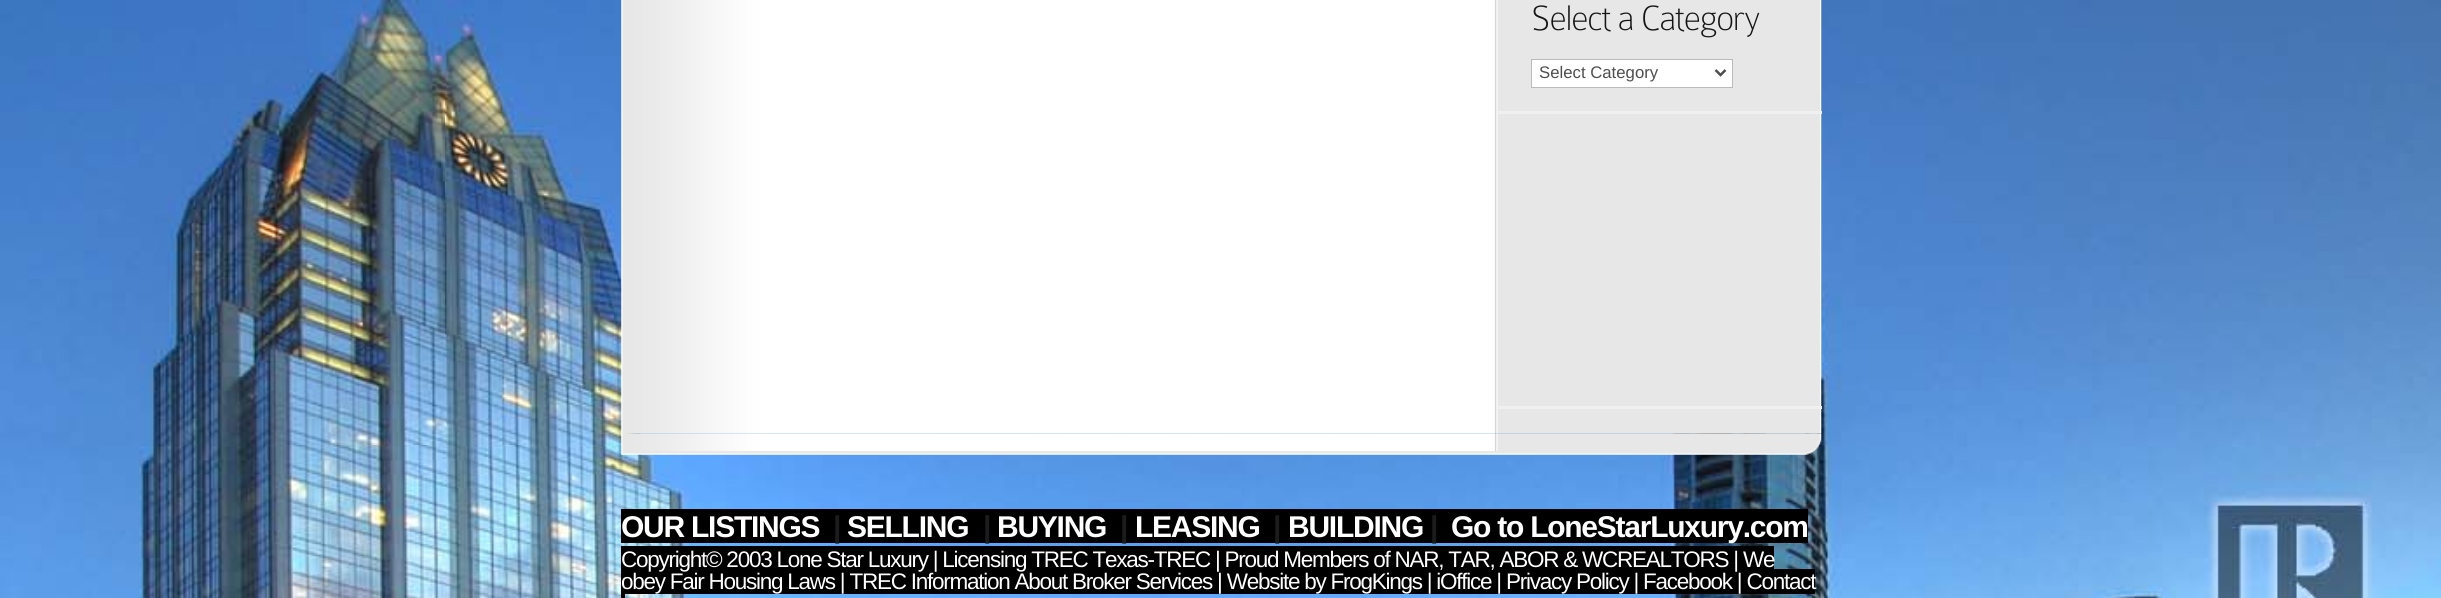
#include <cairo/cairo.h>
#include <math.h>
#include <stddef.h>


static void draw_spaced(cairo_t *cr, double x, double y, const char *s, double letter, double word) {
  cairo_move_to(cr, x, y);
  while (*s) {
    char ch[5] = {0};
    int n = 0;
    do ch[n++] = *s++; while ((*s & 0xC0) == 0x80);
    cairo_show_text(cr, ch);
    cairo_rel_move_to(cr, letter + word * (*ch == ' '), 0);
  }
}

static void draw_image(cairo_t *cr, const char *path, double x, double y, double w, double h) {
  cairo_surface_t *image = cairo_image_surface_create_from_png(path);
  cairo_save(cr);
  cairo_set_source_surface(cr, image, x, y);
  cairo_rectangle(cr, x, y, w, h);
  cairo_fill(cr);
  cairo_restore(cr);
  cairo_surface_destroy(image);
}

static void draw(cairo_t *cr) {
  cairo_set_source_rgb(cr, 1, 1, 1);
  cairo_paint(cr);
  draw_image(cr, "images/1.png", 0, 0, 2441, 598);
  draw_image(cr, "images/2.png", 621, 0, 1201, 434);
  cairo_set_source_rgb(cr, 240 / 255.0, 240 / 255.0, 240 / 255.0);
  cairo_rectangle(cr, 1497, 111, 325, 3);
  cairo_fill(cr);
  cairo_set_source_rgb(cr, 1, 1, 1);
  cairo_rectangle(cr, 1531.5, 59.5, 201, 28);
  cairo_fill_preserve(cr);
  cairo_set_source_rgb(cr, 187 / 255.0, 187 / 255.0, 187 / 255.0);
  cairo_set_line_width(cr, 1);
  cairo_stroke(cr);
  cairo_new_path(cr);
  cairo_move_to(cr, 1715.5, 70);
  cairo_line_to(cr, 1720.5, 75);
  cairo_line_to(cr, 1725.5, 70);
  cairo_set_source_rgb(cr, 78 / 255.0, 78 / 255.0, 78 / 255.0);
  cairo_set_line_width(cr, 2.5);
  cairo_stroke(cr);
  cairo_set_source_rgb(cr, 240 / 255.0, 240 / 255.0, 240 / 255.0);
  cairo_rectangle(cr, 1497, 406, 325, 3);
  cairo_fill(cr);
  draw_image(cr, "images/3.png", 621, 433, 1201, 22);
  cairo_set_source_rgb(cr, 0, 0, 0);
  cairo_rectangle(cr, 621, 509, 1187, 34);
  cairo_fill(cr);
  cairo_rectangle(cr, 621, 546, 817, 23);
  cairo_fill(cr);
  cairo_rectangle(cr, 1438, 546, 5, 25);
  cairo_fill(cr);
  cairo_rectangle(cr, 1443, 546, 331, 23);
  cairo_fill(cr);
  cairo_rectangle(cr, 621, 569, 1194, 25);
  cairo_fill(cr);
  cairo_rectangle(cr, 621, 591, 4, 7);
  cairo_fill(cr);
  cairo_select_font_face(cr, "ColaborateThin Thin", CAIRO_FONT_SLANT_NORMAL, CAIRO_FONT_WEIGHT_NORMAL);
  cairo_set_font_size(cr, 37.5);
  cairo_set_source_rgb(cr, 21 / 255.0, 21 / 255.0, 21 / 255.0);
  draw_spaced(cr, 1531, 30, "Select a Category", -1.25, 0);
  cairo_select_font_face(cr, "Liberation Sans", CAIRO_FONT_SLANT_NORMAL, CAIRO_FONT_WEIGHT_NORMAL);
  cairo_set_font_size(cr, 16.75);
  cairo_set_source_rgb(cr, 78 / 255.0, 78 / 255.0, 78 / 255.0);
  cairo_move_to(cr, 1539, 78);
  cairo_show_text(cr, "Select Category");
  cairo_select_font_face(cr, "Liberation Sans", CAIRO_FONT_SLANT_NORMAL, CAIRO_FONT_WEIGHT_BOLD);
  cairo_set_font_size(cr, 30);
  cairo_set_source_rgb(cr, 1, 1, 1);
  draw_spaced(cr, 621, 537, "OUR LISTINGS", -1.25, 0);
  cairo_set_source_rgb(cr, 28 / 255.0, 28 / 255.0, 28 / 255.0);
  draw_spaced(cr, 833, 537, "|", -1.25, 0);
  cairo_set_source_rgb(cr, 1, 1, 1);
  draw_spaced(cr, 847, 537, "SELLING", -1.25, 0);
  cairo_set_source_rgb(cr, 28 / 255.0, 28 / 255.0, 28 / 255.0);
  draw_spaced(cr, 983, 537, "|", -1.25, 0);
  cairo_set_source_rgb(cr, 1, 1, 1);
  draw_spaced(cr, 997, 537, "BUYING", -1.25, 0);
  cairo_set_source_rgb(cr, 28 / 255.0, 28 / 255.0, 28 / 255.0);
  draw_spaced(cr, 1120, 537, "|", -1.25, 0);
  cairo_set_source_rgb(cr, 1, 1, 1);
  draw_spaced(cr, 1135, 537, "LEASING", -1.25, 0);
  cairo_set_source_rgb(cr, 28 / 255.0, 28 / 255.0, 28 / 255.0);
  draw_spaced(cr, 1273, 537, "|", -1.25, 0);
  cairo_set_source_rgb(cr, 1, 1, 1);
  draw_spaced(cr, 1288, 537, "BUILDING", -1.25, 0);
  cairo_set_source_rgb(cr, 28 / 255.0, 28 / 255.0, 28 / 255.0);
  draw_spaced(cr, 1430, 537, "|", -1.25, 0);
  cairo_set_source_rgb(cr, 1, 1, 1);
  draw_spaced(cr, 1451, 537, "Go to LoneStarLuxury.com", -1.25, 0);
  cairo_select_font_face(cr, "Liberation Sans", CAIRO_FONT_SLANT_NORMAL, CAIRO_FONT_WEIGHT_NORMAL);
  cairo_set_font_size(cr, 22.5);
  draw_spaced(cr, 621, 567, "Copyright© 2003 Lone Star Luxury | Licensing TREC Texas-TREC | Proud Members of NAR, TAR, ABOR & WCREALTORS | We", -1.25, 0);
  draw_spaced(cr, 621, 589, "obey Fair Housing Laws | TREC Information About Broker Services | Website by FrogKings | iOffice | Privacy Policy | Facebook | Contact", -1.25, 0);
}

int main(void) {
  cairo_surface_t *surface = cairo_image_surface_create(CAIRO_FORMAT_RGB24, 2441, 598);
  cairo_t *cr = cairo_create(surface);
  cairo_font_options_t *options = cairo_font_options_create();
  cairo_font_options_set_hint_metrics(options, CAIRO_HINT_METRICS_OFF);
  cairo_font_options_set_hint_style(options, CAIRO_HINT_STYLE_NONE);
  cairo_set_font_options(cr, options);
  cairo_set_miter_limit(cr, 4);
  draw(cr);
  cairo_surface_write_to_png(surface, "out.png");
  cairo_font_options_destroy(options);
  cairo_destroy(cr);
  cairo_surface_destroy(surface);
  return 0;
}
